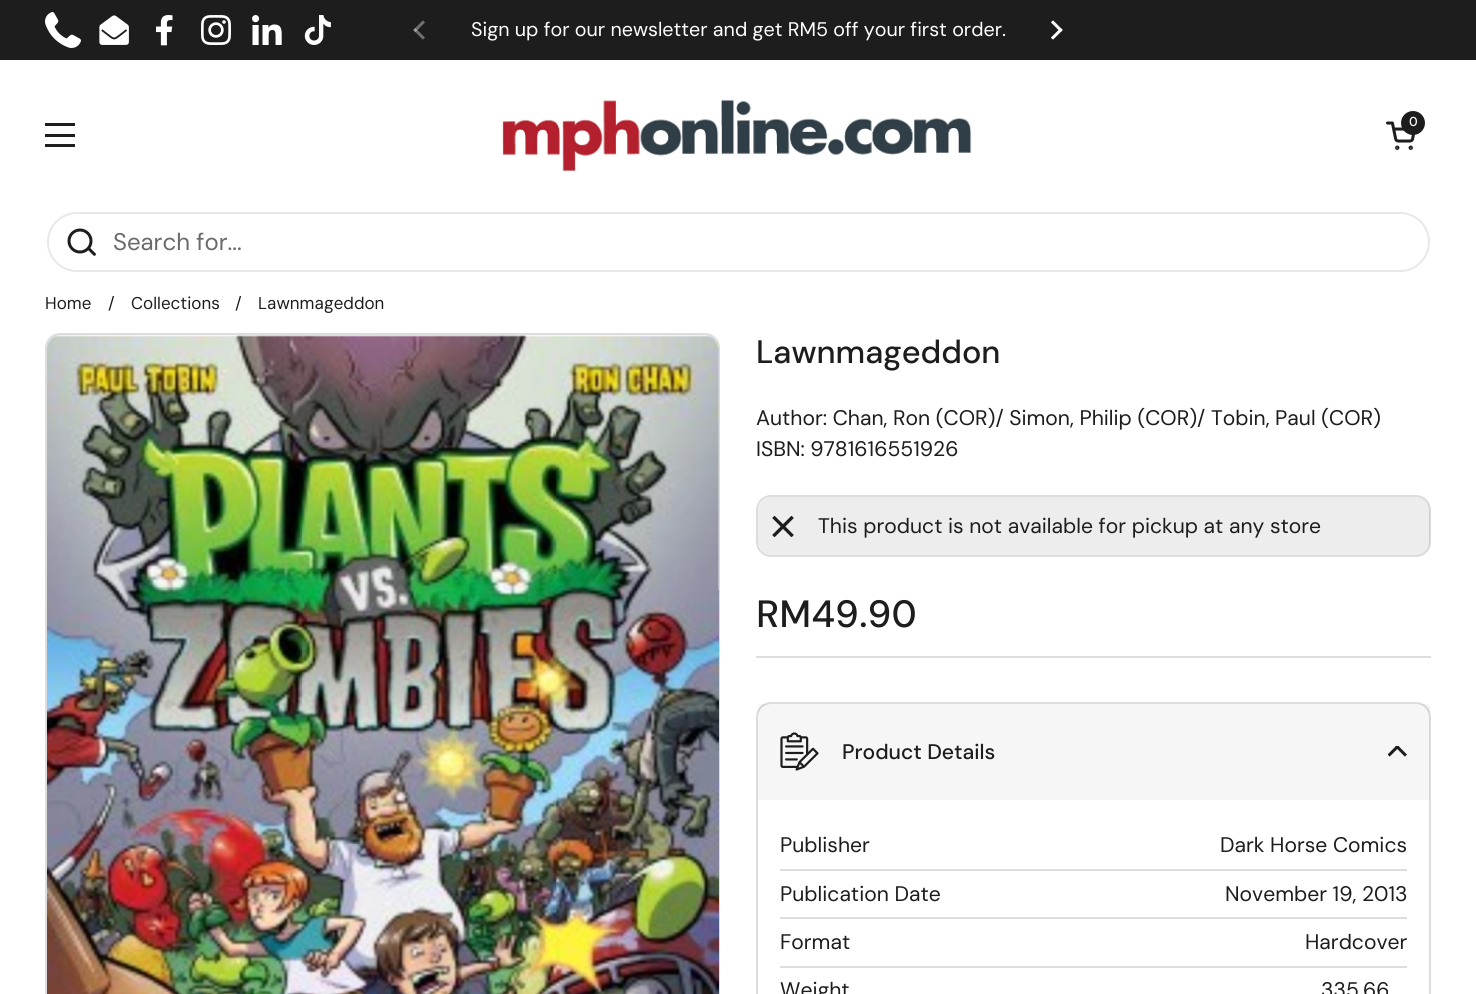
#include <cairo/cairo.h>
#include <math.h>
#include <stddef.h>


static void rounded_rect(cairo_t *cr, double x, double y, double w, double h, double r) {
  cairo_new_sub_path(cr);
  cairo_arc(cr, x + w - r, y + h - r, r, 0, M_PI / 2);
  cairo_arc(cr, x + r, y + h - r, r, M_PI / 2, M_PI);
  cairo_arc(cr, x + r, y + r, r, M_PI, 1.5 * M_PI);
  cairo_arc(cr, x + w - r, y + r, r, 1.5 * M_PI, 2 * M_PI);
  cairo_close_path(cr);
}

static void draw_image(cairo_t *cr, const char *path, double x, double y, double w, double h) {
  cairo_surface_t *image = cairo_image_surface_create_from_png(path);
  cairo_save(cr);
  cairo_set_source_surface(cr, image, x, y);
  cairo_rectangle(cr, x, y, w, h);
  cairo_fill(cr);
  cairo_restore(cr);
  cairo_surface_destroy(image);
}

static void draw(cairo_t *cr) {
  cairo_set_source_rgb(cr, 1, 1, 1);
  cairo_paint(cr);
  cairo_set_source_rgb(cr, 29 / 255.0, 29 / 255.0, 29 / 255.0);
  cairo_rectangle(cr, 0, 0, 1476, 60);
  cairo_fill(cr);
  draw_image(cr, "images/1.png", 45, 12, 36, 36);
  draw_image(cr, "images/2.png", 99, 15, 30, 30);
  draw_image(cr, "images/3.png", 156, 15, 17, 31);
  draw_image(cr, "images/4.png", 201, 15, 30, 30);
  draw_image(cr, "images/5.png", 252, 15, 30, 30);
  draw_image(cr, "images/6.png", 304, 15, 27, 30);
  draw_image(cr, "images/7.png", 413, 20, 12, 20);
  draw_image(cr, "images/8.png", 1051, 20, 12, 20);
  draw_image(cr, "images/9.png", 502, 99, 470, 73);
  draw_image(cr, "images/10.png", 1386, 121, 29, 29);
  cairo_arc(cr, 1413, 123, 12, 0, 2 * M_PI);
  cairo_fill(cr);
  cairo_rectangle(cr, 45, 123, 30, 3);
  cairo_fill(cr);
  cairo_rectangle(cr, 45, 134, 30, 3);
  cairo_fill(cr);
  cairo_rectangle(cr, 45, 144, 30, 3);
  cairo_fill(cr);
  rounded_rect(cr, 48, 213, 1381, 58, 29);
  cairo_set_source_rgb(cr, 232 / 255.0, 232 / 255.0, 232 / 255.0);
  cairo_stroke(cr);
  draw_image(cr, "images/11.png", 67, 228, 29, 28);
  rounded_rect(cr, 46, 334, 673, 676, 14);
  cairo_set_source_rgb(cr, 221 / 255.0, 221 / 255.0, 221 / 255.0);
  cairo_stroke(cr);
  draw_image(cr, "images/12.png", 47, 335, 672, 659);
  rounded_rect(cr, 757, 496, 673, 60, 14);
  cairo_stroke(cr);
  cairo_set_source_rgba(cr, 29 / 255.0, 29 / 255.0, 29 / 255.0, 0.08);
  rounded_rect(cr, 758, 497, 672, 58, 14);
  cairo_fill(cr);
  draw_image(cr, "images/13.png", 772, 515, 22, 23);
  cairo_set_source_rgb(cr, 221 / 255.0, 221 / 255.0, 221 / 255.0);
  cairo_rectangle(cr, 756, 656, 675, 2);
  cairo_fill(cr);
  rounded_rect(cr, 757, 703, 673, 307, 14);
  cairo_stroke(cr);
  cairo_set_source_rgba(cr, 29 / 255.0, 29 / 255.0, 29 / 255.0, 0.04);
  cairo_rectangle(cr, 758, 704, 672, 96);
  cairo_fill(cr);
  draw_image(cr, "images/14.png", 780, 732, 39, 39);
  draw_image(cr, "images/15.png", 1388, 746, 19, 11);
  cairo_set_source_rgb(cr, 221 / 255.0, 221 / 255.0, 221 / 255.0);
  cairo_rectangle(cr, 780, 869, 627, 2);
  cairo_fill(cr);
  cairo_rectangle(cr, 780, 917, 627, 2);
  cairo_fill(cr);
  cairo_rectangle(cr, 780, 966, 627, 2);
  cairo_fill(cr);
  cairo_select_font_face(cr, "DM Sans", CAIRO_FONT_SLANT_NORMAL, CAIRO_FONT_WEIGHT_NORMAL);
  cairo_set_font_size(cr, 19.7);
  cairo_set_source_rgb(cr, 1, 1, 1);
  cairo_move_to(cr, 471, 36);
  cairo_show_text(cr, "Sign up for our newsletter and get RM5 off your first order.");
  cairo_select_font_face(cr, "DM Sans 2 Medium", CAIRO_FONT_SLANT_NORMAL, CAIRO_FONT_WEIGHT_NORMAL);
  cairo_set_font_size(cr, 13);
  cairo_move_to(cr, 1409, 126);
  cairo_show_text(cr, "0");
  cairo_select_font_face(cr, "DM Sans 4", CAIRO_FONT_SLANT_NORMAL, CAIRO_FONT_WEIGHT_NORMAL);
  cairo_set_font_size(cr, 24);
  cairo_set_source_rgb(cr, 106 / 255.0, 106 / 255.0, 106 / 255.0);
  cairo_move_to(cr, 113, 250);
  cairo_show_text(cr, "Search for...");
  cairo_select_font_face(cr, "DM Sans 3", CAIRO_FONT_SLANT_NORMAL, CAIRO_FONT_WEIGHT_NORMAL);
  cairo_set_font_size(cr, 17);
  cairo_set_source_rgb(cr, 29 / 255.0, 29 / 255.0, 29 / 255.0);
  cairo_move_to(cr, 45, 309);
  cairo_show_text(cr, "Home");
  cairo_move_to(cr, 108, 309);
  cairo_show_text(cr, "/");
  cairo_move_to(cr, 131, 309);
  cairo_show_text(cr, "Collections");
  cairo_move_to(cr, 235, 309);
  cairo_show_text(cr, "/");
  cairo_move_to(cr, 258, 309);
  cairo_show_text(cr, "Lawnmageddon");
  cairo_select_font_face(cr, "DM Sans Medium", CAIRO_FONT_SLANT_NORMAL, CAIRO_FONT_WEIGHT_NORMAL);
  cairo_set_font_size(cr, 32.5);
  cairo_move_to(cr, 756, 363);
  cairo_show_text(cr, "Lawnmageddon");
  cairo_select_font_face(cr, "DM Sans 2", CAIRO_FONT_SLANT_NORMAL, CAIRO_FONT_WEIGHT_NORMAL);
  cairo_set_font_size(cr, 21.1);
  cairo_move_to(cr, 756, 425);
  cairo_show_text(cr, "Author: Chan, Ron (COR)/ Simon, Philip (COR)/ Tobin, Paul (COR)");
  cairo_move_to(cr, 756, 456);
  cairo_show_text(cr, "ISBN: 9781616551926");
  cairo_move_to(cr, 818, 533);
  cairo_show_text(cr, "This product is not available for pickup at any store");
  cairo_select_font_face(cr, "DM Sans 2 Medium", CAIRO_FONT_SLANT_NORMAL, CAIRO_FONT_WEIGHT_NORMAL);
  cairo_set_font_size(cr, 38);
  cairo_move_to(cr, 756, 627);
  cairo_show_text(cr, "RM49.90");
  cairo_select_font_face(cr, "DM Sans 3 Medium", CAIRO_FONT_SLANT_NORMAL, CAIRO_FONT_WEIGHT_NORMAL);
  cairo_set_font_size(cr, 21.1);
  cairo_move_to(cr, 842, 759);
  cairo_show_text(cr, "Product Details");
  cairo_select_font_face(cr, "DM Sans 2", CAIRO_FONT_SLANT_NORMAL, CAIRO_FONT_WEIGHT_NORMAL);
  cairo_move_to(cr, 780, 852);
  cairo_show_text(cr, "Publisher");
  cairo_move_to(cr, 1220, 852);
  cairo_show_text(cr, "Dark Horse Comics");
  cairo_move_to(cr, 780, 901);
  cairo_show_text(cr, "Publication Date");
  cairo_move_to(cr, 1225, 901);
  cairo_show_text(cr, "November 19, 2013");
  cairo_move_to(cr, 780, 949);
  cairo_show_text(cr, "Format");
  cairo_move_to(cr, 1305, 949);
  cairo_show_text(cr, "Hardcover");
  cairo_move_to(cr, 780, 997);
  cairo_show_text(cr, "Weight");
  cairo_move_to(cr, 1321, 997);
  cairo_show_text(cr, "335.66");
}

int main(void) {
  cairo_surface_t *surface = cairo_image_surface_create(CAIRO_FORMAT_RGB24, 1476, 994);
  cairo_t *cr = cairo_create(surface);
  cairo_font_options_t *options = cairo_font_options_create();
  cairo_font_options_set_hint_metrics(options, CAIRO_HINT_METRICS_OFF);
  cairo_font_options_set_hint_style(options, CAIRO_HINT_STYLE_NONE);
  cairo_set_font_options(cr, options);
  cairo_set_miter_limit(cr, 4);
  draw(cr);
  cairo_surface_write_to_png(surface, "out.png");
  cairo_font_options_destroy(options);
  cairo_destroy(cr);
  cairo_surface_destroy(surface);
  return 0;
}
